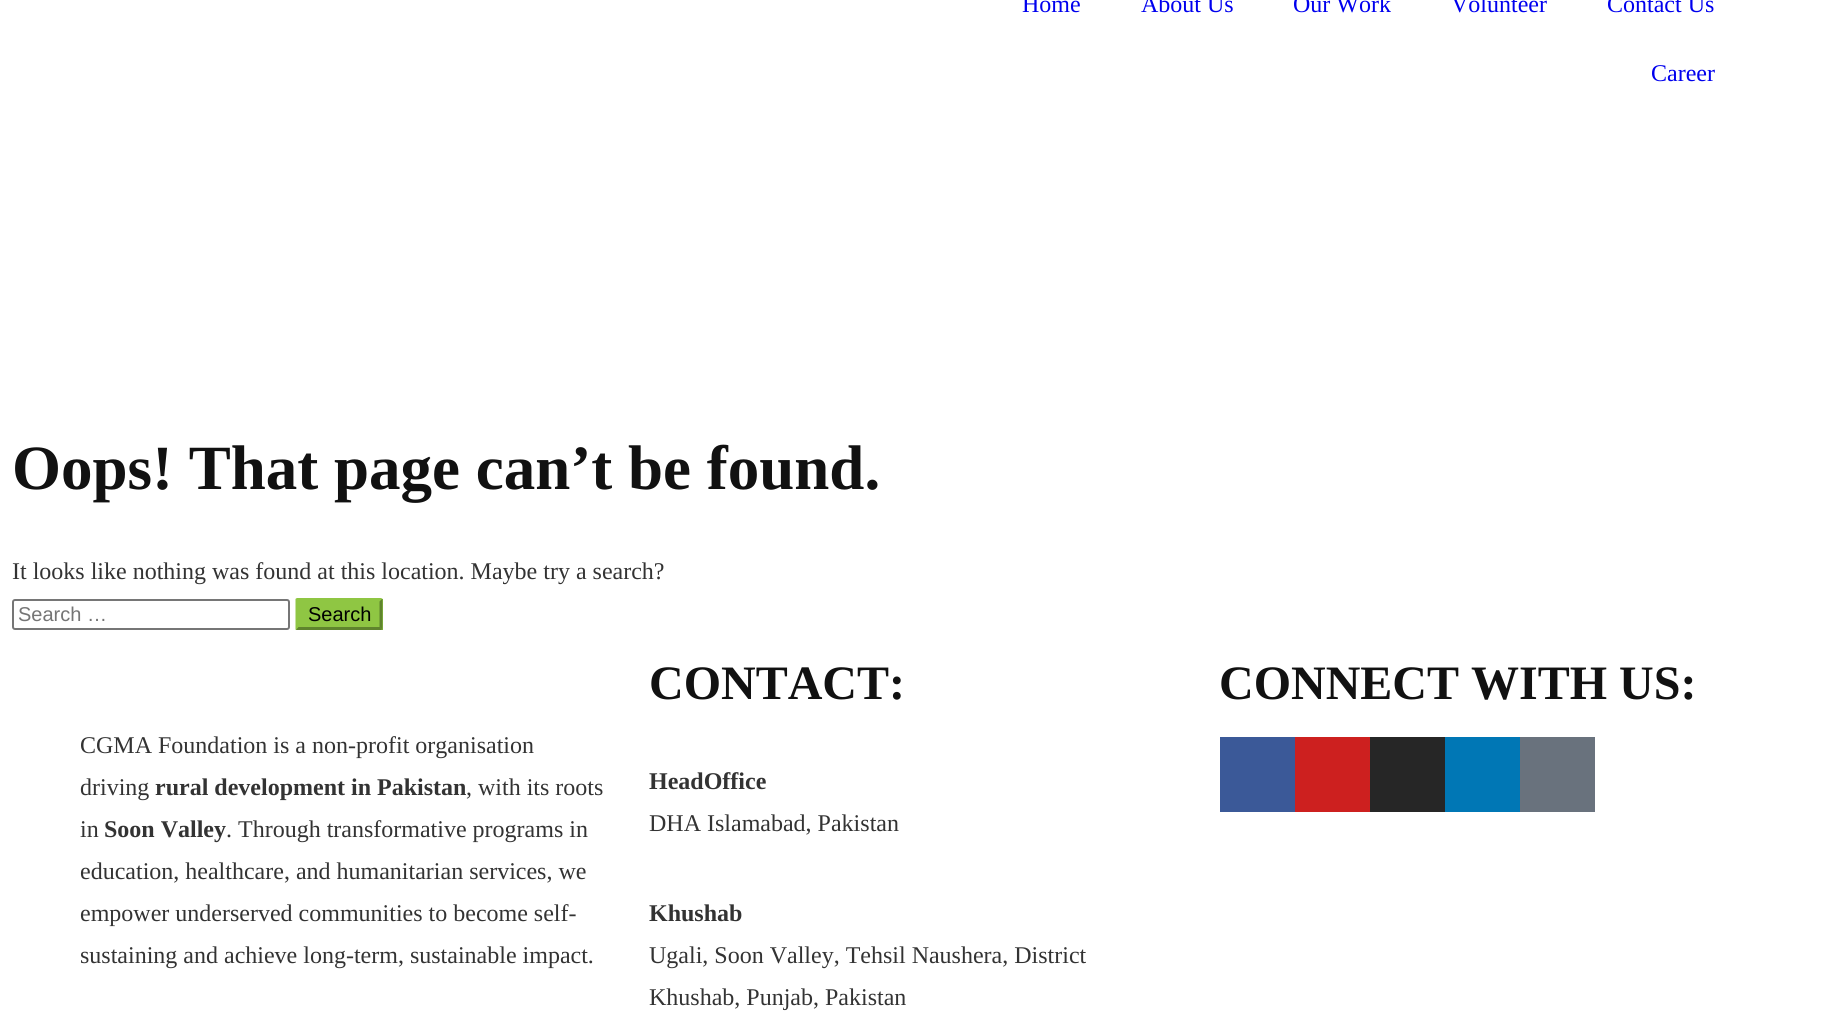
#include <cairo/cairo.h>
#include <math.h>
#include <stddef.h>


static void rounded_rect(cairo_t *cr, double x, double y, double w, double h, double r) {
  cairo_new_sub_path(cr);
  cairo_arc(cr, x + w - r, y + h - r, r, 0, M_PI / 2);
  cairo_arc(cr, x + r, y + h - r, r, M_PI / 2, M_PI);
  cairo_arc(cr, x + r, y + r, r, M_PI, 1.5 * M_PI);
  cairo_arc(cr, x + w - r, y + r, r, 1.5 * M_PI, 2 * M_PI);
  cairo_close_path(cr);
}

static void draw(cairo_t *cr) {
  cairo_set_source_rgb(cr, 1, 1, 1);
  cairo_paint(cr);
  rounded_rect(cr, 13, 600, 276, 29, 2);
  cairo_set_source_rgb(cr, 118 / 255.0, 118 / 255.0, 118 / 255.0);
  cairo_stroke(cr);
  cairo_set_source_rgb(cr, 143 / 255.0, 198 / 255.0, 67 / 255.0);
  cairo_rectangle(cr, 296, 599, 87, 31);
  cairo_fill(cr);
  cairo_new_path(cr);
  cairo_move_to(cr, 296, 598);
  cairo_line_to(cr, 382, 598);
  cairo_line_to(cr, 380, 602);
  cairo_line_to(cr, 298, 602);
  cairo_close_path(cr);
  cairo_fill(cr);
  cairo_set_source_rgb(cr, 95 / 255.0, 132 / 255.0, 45 / 255.0);
  cairo_new_path(cr);
  cairo_move_to(cr, 382.5, 598.5);
  cairo_line_to(cr, 382.5, 630);
  cairo_line_to(cr, 379.5, 627);
  cairo_line_to(cr, 379.5, 601.5);
  cairo_close_path(cr);
  cairo_fill(cr);
  cairo_new_path(cr);
  cairo_move_to(cr, 382, 630);
  cairo_line_to(cr, 296, 630);
  cairo_line_to(cr, 298, 627);
  cairo_line_to(cr, 380, 627);
  cairo_close_path(cr);
  cairo_fill(cr);
  cairo_set_source_rgb(cr, 143 / 255.0, 198 / 255.0, 67 / 255.0);
  cairo_new_path(cr);
  cairo_move_to(cr, 295.5, 630);
  cairo_line_to(cr, 295.5, 598.5);
  cairo_line_to(cr, 298.5, 601.5);
  cairo_line_to(cr, 298.5, 627);
  cairo_close_path(cr);
  cairo_fill(cr);
  cairo_set_source_rgb(cr, 59 / 255.0, 89 / 255.0, 152 / 255.0);
  cairo_rectangle(cr, 1220, 737, 75, 75);
  cairo_fill(cr);
  cairo_set_source_rgb(cr, 205 / 255.0, 32 / 255.0, 31 / 255.0);
  cairo_rectangle(cr, 1295, 737, 75, 75);
  cairo_fill(cr);
  cairo_set_source_rgb(cr, 38 / 255.0, 38 / 255.0, 38 / 255.0);
  cairo_rectangle(cr, 1370, 737, 75, 75);
  cairo_fill(cr);
  cairo_set_source_rgb(cr, 0, 119 / 255.0, 181 / 255.0);
  cairo_rectangle(cr, 1445, 737, 75, 75);
  cairo_fill(cr);
  cairo_set_source_rgb(cr, 105 / 255.0, 114 / 255.0, 125 / 255.0);
  cairo_rectangle(cr, 1520, 737, 75, 75);
  cairo_fill(cr);
  cairo_select_font_face(cr, "Liberation Serif", CAIRO_FONT_SLANT_NORMAL, CAIRO_FONT_WEIGHT_NORMAL);
  cairo_set_font_size(cr, 24);
  cairo_set_source_rgb(cr, 0, 0, 238 / 255.0);
  cairo_move_to(cr, 1022, 12);
  cairo_show_text(cr, "Home");
  cairo_move_to(cr, 1141, 12);
  cairo_show_text(cr, "About Us");
  cairo_move_to(cr, 1293, 12);
  cairo_show_text(cr, "Our Work");
  cairo_move_to(cr, 1451, 12);
  cairo_show_text(cr, "Volunteer");
  cairo_move_to(cr, 1607, 12);
  cairo_show_text(cr, "Contact Us");
  cairo_move_to(cr, 1651, 81);
  cairo_show_text(cr, "Career");
  cairo_select_font_face(cr, "Liberation Serif", CAIRO_FONT_SLANT_NORMAL, CAIRO_FONT_WEIGHT_BOLD);
  cairo_set_font_size(cr, 63);
  cairo_set_source_rgb(cr, 17 / 255.0, 17 / 255.0, 17 / 255.0);
  cairo_move_to(cr, 12, 489);
  cairo_show_text(cr, "Oops! That page can’t be found.");
  cairo_select_font_face(cr, "Liberation Serif", CAIRO_FONT_SLANT_NORMAL, CAIRO_FONT_WEIGHT_NORMAL);
  cairo_set_font_size(cr, 24);
  cairo_set_source_rgb(cr, 51 / 255.0, 51 / 255.0, 51 / 255.0);
  cairo_move_to(cr, 12, 579);
  cairo_show_text(cr, "It looks like nothing was found at this location. Maybe try a search?");
  cairo_select_font_face(cr, "Liberation Sans", CAIRO_FONT_SLANT_NORMAL, CAIRO_FONT_WEIGHT_NORMAL);
  cairo_set_font_size(cr, 20);
  cairo_set_source_rgb(cr, 117 / 255.0, 117 / 255.0, 117 / 255.0);
  cairo_move_to(cr, 18, 621);
  cairo_show_text(cr, "Search …");
  cairo_set_source_rgb(cr, 0, 0, 0);
  cairo_move_to(cr, 308, 621);
  cairo_show_text(cr, "Search");
  cairo_select_font_face(cr, "Liberation Serif", CAIRO_FONT_SLANT_NORMAL, CAIRO_FONT_WEIGHT_BOLD);
  cairo_set_font_size(cr, 48);
  cairo_set_source_rgb(cr, 17 / 255.0, 17 / 255.0, 17 / 255.0);
  cairo_move_to(cr, 649, 699);
  cairo_show_text(cr, "CONTACT:");
  cairo_set_font_size(cr, 24);
  cairo_set_source_rgb(cr, 51 / 255.0, 51 / 255.0, 51 / 255.0);
  cairo_move_to(cr, 649, 789);
  cairo_show_text(cr, "HeadOffice");
  cairo_select_font_face(cr, "Liberation Serif", CAIRO_FONT_SLANT_NORMAL, CAIRO_FONT_WEIGHT_NORMAL);
  cairo_move_to(cr, 649, 831);
  cairo_show_text(cr, "DHA Islamabad, Pakistan");
  cairo_select_font_face(cr, "Liberation Serif", CAIRO_FONT_SLANT_NORMAL, CAIRO_FONT_WEIGHT_BOLD);
  cairo_move_to(cr, 649, 921);
  cairo_show_text(cr, "Khushab");
  cairo_select_font_face(cr, "Liberation Serif", CAIRO_FONT_SLANT_NORMAL, CAIRO_FONT_WEIGHT_NORMAL);
  cairo_move_to(cr, 649, 963);
  cairo_show_text(cr, "Ugali, Soon Valley, Tehsil Naushera, District");
  cairo_move_to(cr, 649, 1005);
  cairo_show_text(cr, "Khushab, Punjab, Pakistan");
  cairo_select_font_face(cr, "Liberation Serif", CAIRO_FONT_SLANT_NORMAL, CAIRO_FONT_WEIGHT_BOLD);
  cairo_set_font_size(cr, 48);
  cairo_set_source_rgb(cr, 17 / 255.0, 17 / 255.0, 17 / 255.0);
  cairo_move_to(cr, 1219, 699);
  cairo_show_text(cr, "CONNECT WITH US:");
  cairo_select_font_face(cr, "Liberation Serif", CAIRO_FONT_SLANT_NORMAL, CAIRO_FONT_WEIGHT_NORMAL);
  cairo_set_font_size(cr, 24);
  cairo_set_source_rgb(cr, 51 / 255.0, 51 / 255.0, 51 / 255.0);
  cairo_move_to(cr, 80, 753);
  cairo_show_text(cr, "CGMA Foundation is a non-profit organisation");
  cairo_move_to(cr, 80, 795);
  cairo_show_text(cr, "driving");
  cairo_select_font_face(cr, "Liberation Serif", CAIRO_FONT_SLANT_NORMAL, CAIRO_FONT_WEIGHT_BOLD);
  cairo_move_to(cr, 155, 795);
  cairo_show_text(cr, "rural development in Pakistan");
  cairo_select_font_face(cr, "Liberation Serif", CAIRO_FONT_SLANT_NORMAL, CAIRO_FONT_WEIGHT_NORMAL);
  cairo_move_to(cr, 466, 795);
  cairo_show_text(cr, ", with its roots");
  cairo_move_to(cr, 80, 837);
  cairo_show_text(cr, "in");
  cairo_select_font_face(cr, "Liberation Serif", CAIRO_FONT_SLANT_NORMAL, CAIRO_FONT_WEIGHT_BOLD);
  cairo_move_to(cr, 104, 837);
  cairo_show_text(cr, "Soon Valley");
  cairo_select_font_face(cr, "Liberation Serif", CAIRO_FONT_SLANT_NORMAL, CAIRO_FONT_WEIGHT_NORMAL);
  cairo_move_to(cr, 226, 837);
  cairo_show_text(cr, ". Through transformative programs in");
  cairo_move_to(cr, 80, 879);
  cairo_show_text(cr, "education, healthcare, and humanitarian services, we");
  cairo_move_to(cr, 80, 921);
  cairo_show_text(cr, "empower underserved communities to become self-");
  cairo_move_to(cr, 80, 963);
  cairo_show_text(cr, "sustaining and achieve long-term, sustainable impact.");
}

int main(void) {
  cairo_surface_t *surface = cairo_image_surface_create(CAIRO_FORMAT_RGB24, 1824, 1034);
  cairo_t *cr = cairo_create(surface);
  cairo_font_options_t *options = cairo_font_options_create();
  cairo_font_options_set_hint_metrics(options, CAIRO_HINT_METRICS_OFF);
  cairo_font_options_set_hint_style(options, CAIRO_HINT_STYLE_NONE);
  cairo_set_font_options(cr, options);
  cairo_set_miter_limit(cr, 4);
  draw(cr);
  cairo_surface_write_to_png(surface, "out.png");
  cairo_font_options_destroy(options);
  cairo_destroy(cr);
  cairo_surface_destroy(surface);
  return 0;
}
